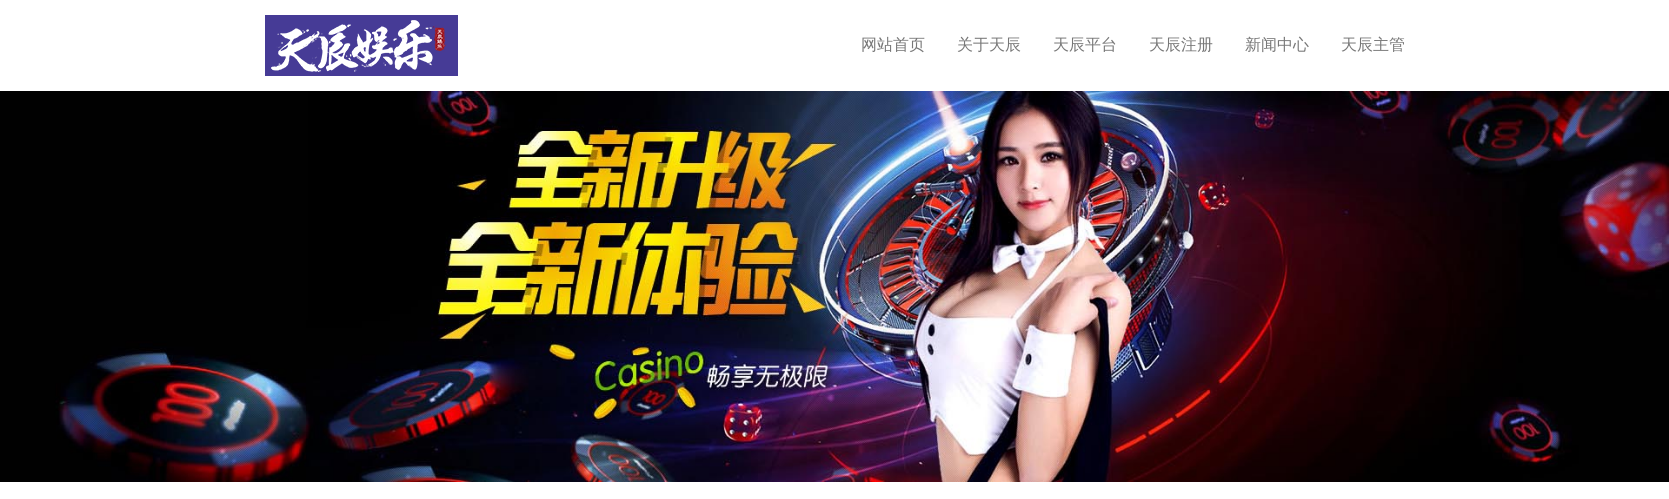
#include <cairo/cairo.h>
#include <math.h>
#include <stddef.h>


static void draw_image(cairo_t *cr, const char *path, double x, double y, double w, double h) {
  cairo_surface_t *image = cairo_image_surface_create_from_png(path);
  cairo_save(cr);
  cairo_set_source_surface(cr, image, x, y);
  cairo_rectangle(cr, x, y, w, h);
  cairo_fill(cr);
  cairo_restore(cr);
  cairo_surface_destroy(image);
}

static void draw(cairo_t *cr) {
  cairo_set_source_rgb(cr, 1, 1, 1);
  cairo_paint(cr);
  draw_image(cr, "images/1.png", 265, 15, 193, 61);
  draw_image(cr, "images/2.png", 0, 91, 1669, 391);
  cairo_select_font_face(cr, "WenQuanYi Zen Hei Medium", CAIRO_FONT_SLANT_NORMAL, CAIRO_FONT_WEIGHT_NORMAL);
  cairo_set_font_size(cr, 16);
  cairo_set_source_rgb(cr, 119 / 255.0, 119 / 255.0, 119 / 255.0);
  cairo_move_to(cr, 861, 50);
  cairo_show_text(cr, "网站首页");
  cairo_move_to(cr, 957, 50);
  cairo_show_text(cr, "关于天辰");
  cairo_move_to(cr, 1053, 50);
  cairo_show_text(cr, "天辰平台");
  cairo_move_to(cr, 1149, 50);
  cairo_show_text(cr, "天辰注册");
  cairo_move_to(cr, 1245, 50);
  cairo_show_text(cr, "新闻中心");
  cairo_move_to(cr, 1341, 50);
  cairo_show_text(cr, "天辰主管");
}

int main(void) {
  cairo_surface_t *surface = cairo_image_surface_create(CAIRO_FORMAT_RGB24, 1669, 499);
  cairo_t *cr = cairo_create(surface);
  cairo_font_options_t *options = cairo_font_options_create();
  cairo_font_options_set_hint_metrics(options, CAIRO_HINT_METRICS_OFF);
  cairo_font_options_set_hint_style(options, CAIRO_HINT_STYLE_NONE);
  cairo_set_font_options(cr, options);
  cairo_set_miter_limit(cr, 4);
  draw(cr);
  cairo_surface_write_to_png(surface, "out.png");
  cairo_font_options_destroy(options);
  cairo_destroy(cr);
  cairo_surface_destroy(surface);
  return 0;
}
